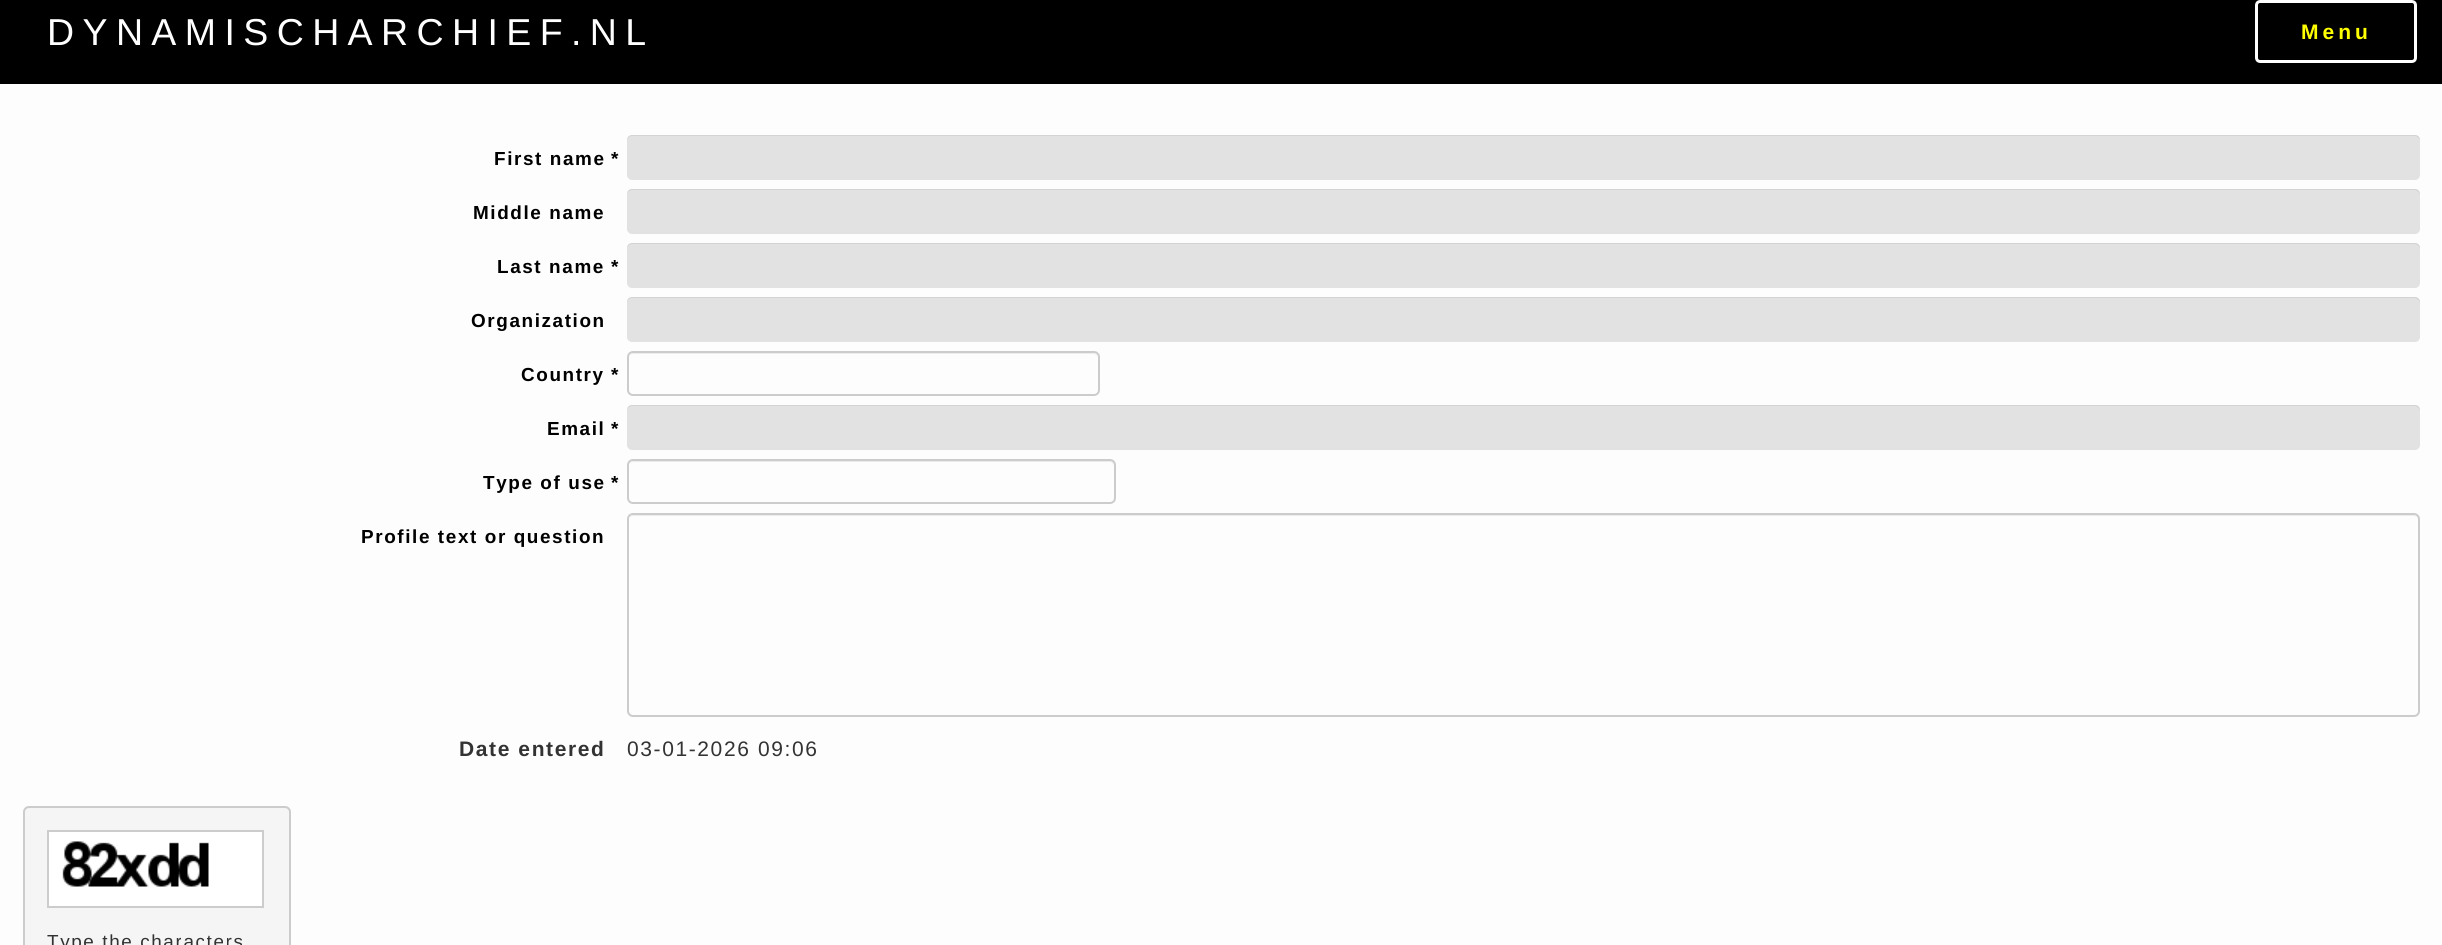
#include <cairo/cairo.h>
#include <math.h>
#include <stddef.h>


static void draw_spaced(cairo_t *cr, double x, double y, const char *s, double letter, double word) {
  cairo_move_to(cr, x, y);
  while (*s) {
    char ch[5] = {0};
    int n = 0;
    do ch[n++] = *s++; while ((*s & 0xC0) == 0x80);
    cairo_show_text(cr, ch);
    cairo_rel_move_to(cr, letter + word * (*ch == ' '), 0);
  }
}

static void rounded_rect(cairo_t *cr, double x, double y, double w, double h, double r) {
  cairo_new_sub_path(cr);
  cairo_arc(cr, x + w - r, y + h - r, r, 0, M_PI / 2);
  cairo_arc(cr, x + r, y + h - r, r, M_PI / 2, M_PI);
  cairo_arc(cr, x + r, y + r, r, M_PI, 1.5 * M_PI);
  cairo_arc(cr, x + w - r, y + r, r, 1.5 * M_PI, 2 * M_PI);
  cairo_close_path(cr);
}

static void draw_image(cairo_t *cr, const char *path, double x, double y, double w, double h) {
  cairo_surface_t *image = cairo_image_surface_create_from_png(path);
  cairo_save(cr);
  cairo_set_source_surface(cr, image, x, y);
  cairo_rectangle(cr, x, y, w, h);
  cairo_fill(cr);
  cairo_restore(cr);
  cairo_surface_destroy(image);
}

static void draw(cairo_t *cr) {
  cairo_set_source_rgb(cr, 253 / 255.0, 253 / 255.0, 253 / 255.0);
  cairo_paint(cr);
  cairo_set_source_rgb(cr, 0, 0, 0);
  cairo_rectangle(cr, 0, 0, 2442, 84);
  cairo_fill(cr);
  rounded_rect(cr, 2256.5, 1.5, 159, 60, 3.5);
  cairo_set_source_rgb(cr, 1, 1, 1);
  cairo_set_line_width(cr, 3);
  cairo_stroke(cr);
  cairo_set_source_rgb(cr, 226 / 255.0, 226 / 255.0, 226 / 255.0);
  rounded_rect(cr, 627, 135, 1793, 45, 5);
  cairo_fill(cr);
  cairo_set_source_rgba(cr, 0, 0, 0, 0.07);
  cairo_new_path(cr);
  cairo_move_to(cr, 632, 136);
  cairo_line_to(cr, 2415, 136);
  cairo_curve_to(cr, 2417, 136, 2420, 139, 2420, 141);
  cairo_line_to(cr, 2420, 140);
  cairo_curve_to(cr, 2420, 137, 2418, 135, 2415, 135);
  cairo_line_to(cr, 632, 135);
  cairo_curve_to(cr, 629, 135, 627, 137, 627, 140);
  cairo_line_to(cr, 627, 141);
  cairo_curve_to(cr, 627, 139, 629, 136, 632, 136);
  cairo_close_path(cr);
  cairo_fill(cr);
  cairo_set_source_rgb(cr, 226 / 255.0, 226 / 255.0, 226 / 255.0);
  rounded_rect(cr, 627, 189, 1793, 45, 5);
  cairo_fill(cr);
  cairo_set_source_rgba(cr, 0, 0, 0, 0.07);
  cairo_new_path(cr);
  cairo_move_to(cr, 632, 190);
  cairo_line_to(cr, 2415, 190);
  cairo_curve_to(cr, 2417, 190, 2420, 193, 2420, 195);
  cairo_line_to(cr, 2420, 194);
  cairo_curve_to(cr, 2420, 191, 2418, 189, 2415, 189);
  cairo_line_to(cr, 632, 189);
  cairo_curve_to(cr, 629, 189, 627, 191, 627, 194);
  cairo_line_to(cr, 627, 195);
  cairo_curve_to(cr, 627, 193, 629, 190, 632, 190);
  cairo_close_path(cr);
  cairo_fill(cr);
  cairo_set_source_rgb(cr, 226 / 255.0, 226 / 255.0, 226 / 255.0);
  rounded_rect(cr, 627, 243, 1793, 45, 5);
  cairo_fill(cr);
  cairo_set_source_rgba(cr, 0, 0, 0, 0.07);
  cairo_new_path(cr);
  cairo_move_to(cr, 632, 244);
  cairo_line_to(cr, 2415, 244);
  cairo_curve_to(cr, 2417, 244, 2420, 247, 2420, 249);
  cairo_line_to(cr, 2420, 248);
  cairo_curve_to(cr, 2420, 245, 2418, 243, 2415, 243);
  cairo_line_to(cr, 632, 243);
  cairo_curve_to(cr, 629, 243, 627, 245, 627, 248);
  cairo_line_to(cr, 627, 249);
  cairo_curve_to(cr, 627, 247, 629, 244, 632, 244);
  cairo_close_path(cr);
  cairo_fill(cr);
  cairo_set_source_rgb(cr, 226 / 255.0, 226 / 255.0, 226 / 255.0);
  rounded_rect(cr, 627, 297, 1793, 45, 5);
  cairo_fill(cr);
  cairo_set_source_rgba(cr, 0, 0, 0, 0.07);
  cairo_new_path(cr);
  cairo_move_to(cr, 632, 298);
  cairo_line_to(cr, 2415, 298);
  cairo_curve_to(cr, 2417, 298, 2420, 301, 2420, 303);
  cairo_line_to(cr, 2420, 302);
  cairo_curve_to(cr, 2420, 299, 2418, 297, 2415, 297);
  cairo_line_to(cr, 632, 297);
  cairo_curve_to(cr, 629, 297, 627, 299, 627, 302);
  cairo_line_to(cr, 627, 303);
  cairo_curve_to(cr, 627, 301, 629, 298, 632, 298);
  cairo_close_path(cr);
  cairo_fill(cr);
  cairo_set_source_rgb(cr, 236 / 255.0, 236 / 255.0, 236 / 255.0);
  cairo_new_path(cr);
  cairo_move_to(cr, 633, 354);
  cairo_line_to(cr, 1094, 354);
  cairo_curve_to(cr, 1096, 354, 1098, 356, 1098, 358);
  cairo_curve_to(cr, 1098, 355, 1096, 353, 1093, 353);
  cairo_line_to(cr, 634, 353);
  cairo_curve_to(cr, 632, 353, 631, 354, 630, 355);
  cairo_close_path(cr);
  cairo_fill(cr);
  rounded_rect(cr, 628, 352, 471, 43, 5);
  cairo_set_source_rgb(cr, 204 / 255.0, 204 / 255.0, 204 / 255.0);
  cairo_set_line_width(cr, 2);
  cairo_stroke(cr);
  cairo_set_source_rgb(cr, 226 / 255.0, 226 / 255.0, 226 / 255.0);
  rounded_rect(cr, 627, 405, 1793, 45, 5);
  cairo_fill(cr);
  cairo_set_source_rgba(cr, 0, 0, 0, 0.07);
  cairo_new_path(cr);
  cairo_move_to(cr, 632, 406);
  cairo_line_to(cr, 2415, 406);
  cairo_curve_to(cr, 2417, 406, 2420, 409, 2420, 411);
  cairo_line_to(cr, 2420, 410);
  cairo_curve_to(cr, 2420, 407, 2418, 405, 2415, 405);
  cairo_line_to(cr, 632, 405);
  cairo_curve_to(cr, 629, 405, 627, 407, 627, 410);
  cairo_line_to(cr, 627, 411);
  cairo_curve_to(cr, 627, 409, 629, 406, 632, 406);
  cairo_close_path(cr);
  cairo_fill(cr);
  cairo_set_source_rgb(cr, 236 / 255.0, 236 / 255.0, 236 / 255.0);
  cairo_new_path(cr);
  cairo_move_to(cr, 633, 462);
  cairo_line_to(cr, 1110, 462);
  cairo_curve_to(cr, 1112, 462, 1114, 464, 1114, 466);
  cairo_line_to(cr, 1114, 501);
  cairo_curve_to(cr, 1115, 500, 1115, 499, 1115, 498);
  cairo_line_to(cr, 1115, 466);
  cairo_curve_to(cr, 1115, 463, 1113, 461, 1110, 461);
  cairo_line_to(cr, 634, 461);
  cairo_curve_to(cr, 632, 461, 631, 462, 630, 463);
  cairo_close_path(cr);
  cairo_fill(cr);
  rounded_rect(cr, 628, 460, 487, 43, 5);
  cairo_set_source_rgb(cr, 204 / 255.0, 204 / 255.0, 204 / 255.0);
  cairo_stroke(cr);
  cairo_set_source_rgb(cr, 236 / 255.0, 236 / 255.0, 236 / 255.0);
  cairo_new_path(cr);
  cairo_move_to(cr, 633, 516);
  cairo_line_to(cr, 2414, 516);
  cairo_curve_to(cr, 2416, 516, 2418, 518, 2418, 520);
  cairo_curve_to(cr, 2418, 517, 2416, 515, 2413, 515);
  cairo_line_to(cr, 634, 515);
  cairo_curve_to(cr, 632, 515, 631, 516, 630, 517);
  cairo_close_path(cr);
  cairo_fill(cr);
  rounded_rect(cr, 628, 514, 1791, 202, 5);
  cairo_set_source_rgb(cr, 204 / 255.0, 204 / 255.0, 204 / 255.0);
  cairo_stroke(cr);
  cairo_set_source_rgb(cr, 245 / 255.0, 245 / 255.0, 245 / 255.0);
  rounded_rect(cr, 23, 806, 268, 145, 6);
  cairo_fill(cr);
  cairo_set_source_rgb(cr, 233 / 255.0, 233 / 255.0, 233 / 255.0);
  cairo_new_path(cr);
  cairo_move_to(cr, 28, 808);
  cairo_line_to(cr, 285, 808);
  cairo_curve_to(cr, 287, 808, 290, 811, 290, 813);
  cairo_curve_to(cr, 290, 810, 288, 807, 285, 807);
  cairo_line_to(cr, 29, 807);
  cairo_curve_to(cr, 26, 807, 24, 810, 24, 813);
  cairo_curve_to(cr, 24, 811, 26, 808, 28, 808);
  cairo_close_path(cr);
  cairo_fill(cr);
  rounded_rect(cr, 24, 807, 266, 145, 5);
  cairo_set_source_rgb(cr, 204 / 255.0, 204 / 255.0, 204 / 255.0);
  cairo_stroke(cr);
  cairo_set_source_rgb(cr, 1, 1, 1);
  cairo_rectangle(cr, 48, 831, 215, 76);
  cairo_fill_preserve(cr);
  cairo_set_source_rgb(cr, 204 / 255.0, 204 / 255.0, 204 / 255.0);
  cairo_stroke(cr);
  draw_image(cr, "images/1.png", 62, 841, 147, 46);
  cairo_select_font_face(cr, "Liberation Sans", CAIRO_FONT_SLANT_NORMAL, CAIRO_FONT_WEIGHT_NORMAL);
  cairo_set_font_size(cr, 37.5);
  cairo_set_source_rgb(cr, 1, 1, 1);
  draw_spaced(cr, 47, 45, "DYNAMISCHARCHIEF.NL", 8.4, 0);
  cairo_select_font_face(cr, "Liberation Sans", CAIRO_FONT_SLANT_NORMAL, CAIRO_FONT_WEIGHT_BOLD);
  cairo_set_font_size(cr, 21);
  cairo_set_source_rgb(cr, 1, 1, 0);
  draw_spaced(cr, 2301, 39, "Menu", 4, 0);
  cairo_set_font_size(cr, 18.9);
  cairo_set_source_rgb(cr, 0, 0, 0);
  draw_spaced(cr, 494, 165, "First name", 1.6, 0);
  draw_spaced(cr, 611, 165, "*", 1.6, 0);
  draw_spaced(cr, 473, 219, "Middle name", 1.6, 0);
  draw_spaced(cr, 497, 273, "Last name", 1.6, 0);
  draw_spaced(cr, 611, 273, "*", 1.6, 0);
  draw_spaced(cr, 471, 327, "Organization", 1.6, 0);
  draw_spaced(cr, 521, 381, "Country", 1.6, 0);
  draw_spaced(cr, 611, 381, "*", 1.6, 0);
  draw_spaced(cr, 547, 435, "Email", 1.6, 0);
  draw_spaced(cr, 611, 435, "*", 1.6, 0);
  draw_spaced(cr, 483, 489, "Type of use", 1.6, 0);
  draw_spaced(cr, 611, 489, "*", 1.6, 0);
  draw_spaced(cr, 361, 543, "Profile text or question", 1.6, 0);
  cairo_set_font_size(cr, 21);
  cairo_set_source_rgb(cr, 51 / 255.0, 51 / 255.0, 51 / 255.0);
  draw_spaced(cr, 459, 756, "Date entered", 1.6, 0);
  cairo_select_font_face(cr, "Liberation Sans", CAIRO_FONT_SLANT_NORMAL, CAIRO_FONT_WEIGHT_NORMAL);
  draw_spaced(cr, 627, 756, "03-01-2026 09:06", 1.6, 0);
  cairo_set_font_size(cr, 18.9);
  draw_spaced(cr, 47, 948, "Type the characters", 1.6, 0);
}

int main(void) {
  cairo_surface_t *surface = cairo_image_surface_create(CAIRO_FORMAT_RGB24, 2442, 945);
  cairo_t *cr = cairo_create(surface);
  cairo_font_options_t *options = cairo_font_options_create();
  cairo_font_options_set_hint_metrics(options, CAIRO_HINT_METRICS_OFF);
  cairo_font_options_set_hint_style(options, CAIRO_HINT_STYLE_NONE);
  cairo_set_font_options(cr, options);
  cairo_set_miter_limit(cr, 4);
  draw(cr);
  cairo_surface_write_to_png(surface, "out.png");
  cairo_font_options_destroy(options);
  cairo_destroy(cr);
  cairo_surface_destroy(surface);
  return 0;
}
